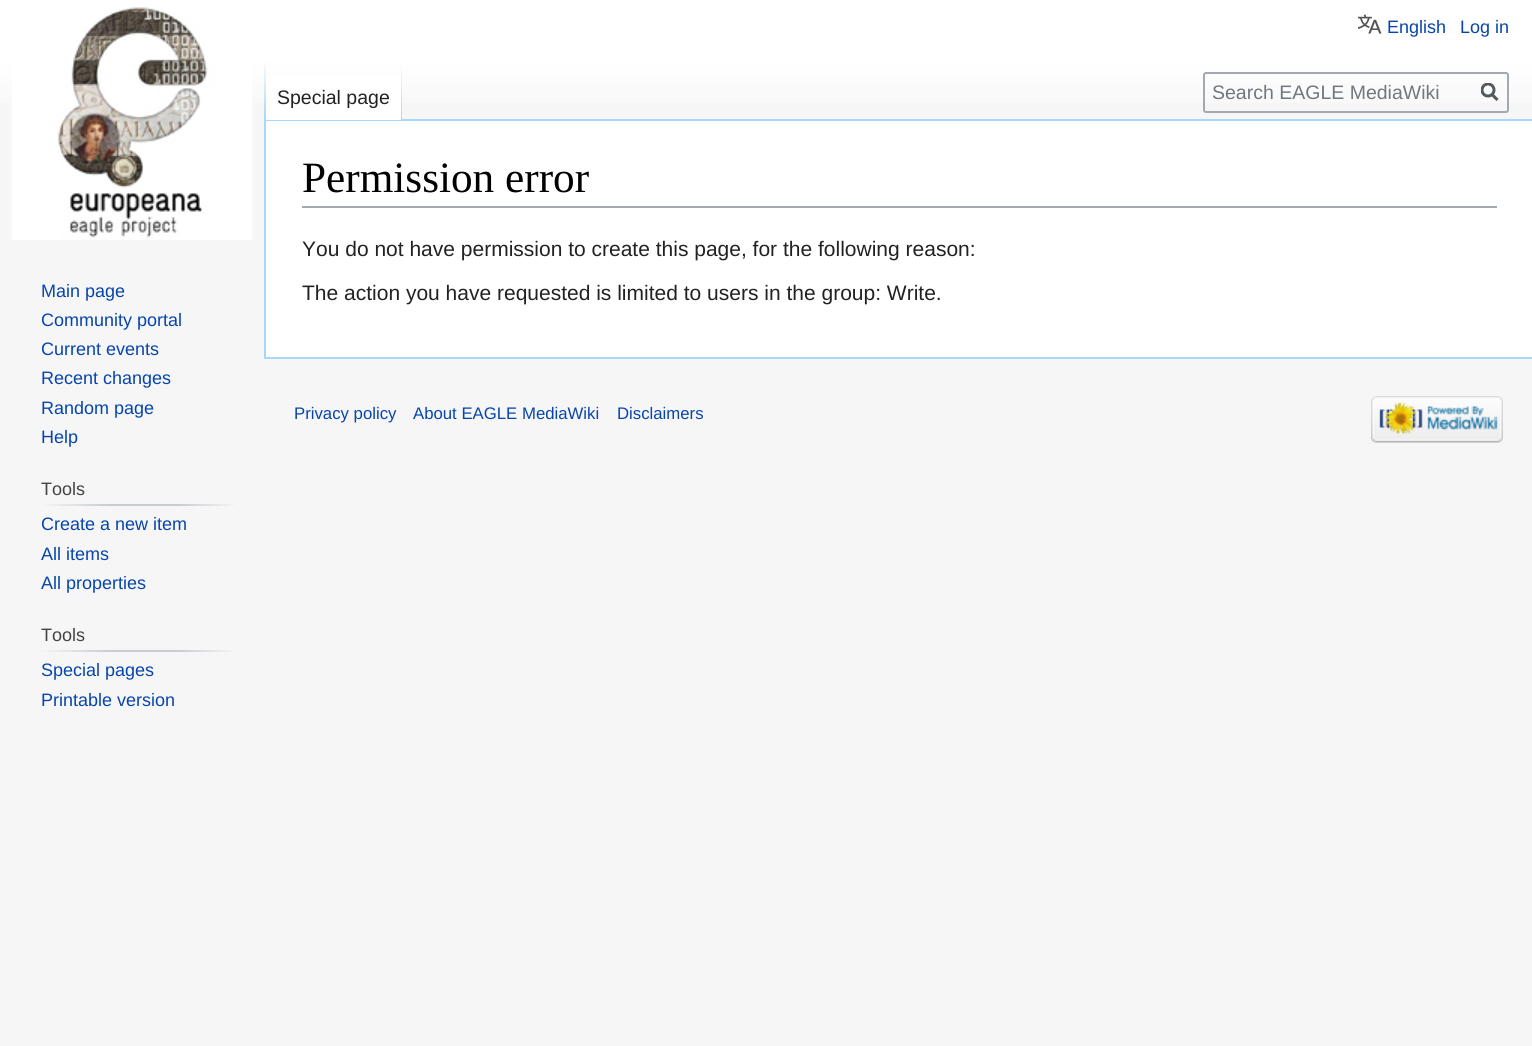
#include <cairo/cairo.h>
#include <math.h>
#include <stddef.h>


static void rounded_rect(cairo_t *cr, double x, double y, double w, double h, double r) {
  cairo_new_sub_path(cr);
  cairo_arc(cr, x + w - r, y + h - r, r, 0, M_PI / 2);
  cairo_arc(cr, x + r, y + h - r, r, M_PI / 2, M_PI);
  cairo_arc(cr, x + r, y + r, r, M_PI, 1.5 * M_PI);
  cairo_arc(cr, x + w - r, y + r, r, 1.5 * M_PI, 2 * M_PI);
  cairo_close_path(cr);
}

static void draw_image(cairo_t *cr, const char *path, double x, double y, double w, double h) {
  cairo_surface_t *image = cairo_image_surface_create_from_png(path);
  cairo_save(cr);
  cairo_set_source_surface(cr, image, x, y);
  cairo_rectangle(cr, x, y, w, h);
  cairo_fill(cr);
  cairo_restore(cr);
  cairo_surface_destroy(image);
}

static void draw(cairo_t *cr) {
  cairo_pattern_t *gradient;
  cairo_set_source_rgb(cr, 246 / 255.0, 246 / 255.0, 246 / 255.0);
  cairo_paint(cr);
  gradient = cairo_pattern_create_linear(767, 0, 767, 120);
  cairo_pattern_add_color_stop_rgba(gradient, 0.5, 1, 1, 1, 1);
  cairo_pattern_add_color_stop_rgba(gradient, 1, 246 / 255.0, 246 / 255.0, 246 / 255.0, 1);
  cairo_set_source(cr, gradient);
  cairo_pattern_destroy(gradient);
  cairo_rectangle(cr, 0, 0, 1532, 103);
  cairo_fill(cr);
  draw_image(cr, "images/1.png", 1358, 14, 24, 20);
  cairo_set_source_rgb(cr, 167 / 255.0, 215 / 255.0, 249 / 255.0);
  cairo_rectangle(cr, 264, 119, 1268, 2);
  cairo_fill(cr);
  cairo_rectangle(cr, 264, 357, 1268, 2);
  cairo_fill(cr);
  cairo_rectangle(cr, 264, 119, 2, 240);
  cairo_fill(cr);
  gradient = cairo_pattern_create_linear(265, 60, 265, 120);
  cairo_pattern_add_color_stop_rgba(gradient, 0, 167 / 255.0, 215 / 255.0, 249 / 255.0, 0);
  cairo_pattern_add_color_stop_rgba(gradient, 1, 167 / 255.0, 215 / 255.0, 249 / 255.0, 1);
  cairo_set_source(cr, gradient);
  cairo_pattern_destroy(gradient);
  cairo_rectangle(cr, 264, 60, 2, 60);
  cairo_fill(cr);
  cairo_set_source_rgb(cr, 1, 1, 1);
  cairo_rectangle(cr, 266, 77, 135, 43);
  cairo_fill(cr);
  gradient = cairo_pattern_create_linear(401, 60, 401, 120);
  cairo_pattern_add_color_stop_rgba(gradient, 0, 1, 1, 1, 1);
  cairo_pattern_add_color_stop_rgba(gradient, 1, 167 / 255.0, 215 / 255.0, 249 / 255.0, 1);
  cairo_set_source(cr, gradient);
  cairo_pattern_destroy(gradient);
  cairo_rectangle(cr, 401, 60, 1, 60);
  cairo_fill(cr);
  rounded_rect(cr, 1204, 73, 304, 39, 2);
  cairo_set_source_rgb(cr, 162 / 255.0, 169 / 255.0, 177 / 255.0);
  cairo_stroke(cr);
  cairo_new_path(cr);
  cairo_move_to(cr, 1497.5, 100);
  cairo_line_to(cr, 1491.5, 94);
  cairo_set_source_rgb(cr, 84 / 255.0, 89 / 255.0, 93 / 255.0);
  cairo_set_line_width(cr, 3);
  cairo_stroke(cr);
  cairo_save(cr);
  cairo_rectangle(cr, 1481, 83, 18, 19);
  cairo_clip(cr);
  cairo_arc(cr, 1488, 90, 6, 0, 2 * M_PI);
  cairo_stroke(cr);
  cairo_restore(cr);
  draw_image(cr, "images/2.png", 12, 7, 240, 233);
  gradient = cairo_pattern_create_linear(41, 505, 237, 505);
  cairo_pattern_add_color_stop_rgba(gradient, 0, 246 / 255.0, 246 / 255.0, 246 / 255.0, 1);
  cairo_pattern_add_color_stop_rgba(gradient, 0.35, 200 / 255.0, 204 / 255.0, 209 / 255.0, 1);
  cairo_pattern_add_color_stop_rgba(gradient, 0.7, 200 / 255.0, 204 / 255.0, 209 / 255.0, 1);
  cairo_pattern_add_color_stop_rgba(gradient, 1, 246 / 255.0, 246 / 255.0, 246 / 255.0, 1);
  cairo_set_source(cr, gradient);
  cairo_pattern_destroy(gradient);
  cairo_rectangle(cr, 41, 504, 196, 2);
  cairo_fill(cr);
  gradient = cairo_pattern_create_linear(41, 650, 237, 650);
  cairo_pattern_add_color_stop_rgba(gradient, 0, 246 / 255.0, 246 / 255.0, 246 / 255.0, 1);
  cairo_pattern_add_color_stop_rgba(gradient, 0.35, 200 / 255.0, 204 / 255.0, 209 / 255.0, 1);
  cairo_pattern_add_color_stop_rgba(gradient, 0.7, 200 / 255.0, 204 / 255.0, 209 / 255.0, 1);
  cairo_pattern_add_color_stop_rgba(gradient, 1, 246 / 255.0, 246 / 255.0, 246 / 255.0, 1);
  cairo_set_source(cr, gradient);
  cairo_pattern_destroy(gradient);
  cairo_rectangle(cr, 41, 650, 196, 2);
  cairo_fill(cr);
  cairo_set_source_rgb(cr, 1, 1, 1);
  cairo_rectangle(cr, 266, 121, 1266, 236);
  cairo_fill(cr);
  cairo_set_source_rgb(cr, 162 / 255.0, 169 / 255.0, 177 / 255.0);
  cairo_rectangle(cr, 302, 206, 1195, 2);
  cairo_fill(cr);
  draw_image(cr, "images/3.png", 1371, 396, 132, 47);
  cairo_select_font_face(cr, "Liberation Sans", CAIRO_FONT_SLANT_NORMAL, CAIRO_FONT_WEIGHT_NORMAL);
  cairo_set_font_size(cr, 18);
  cairo_set_source_rgb(cr, 6 / 255.0, 69 / 255.0, 173 / 255.0);
  cairo_move_to(cr, 1387, 33);
  cairo_show_text(cr, "English");
  cairo_move_to(cr, 1460, 33);
  cairo_show_text(cr, "Log in");
  cairo_set_font_size(cr, 19.5);
  cairo_set_source_rgb(cr, 34 / 255.0, 34 / 255.0, 34 / 255.0);
  cairo_move_to(cr, 277, 104);
  cairo_show_text(cr, "Special page");
  cairo_set_source_rgb(cr, 114 / 255.0, 119 / 255.0, 125 / 255.0);
  cairo_move_to(cr, 1212, 99);
  cairo_show_text(cr, "Search EAGLE MediaWiki");
  cairo_set_font_size(cr, 18);
  cairo_set_source_rgb(cr, 6 / 255.0, 69 / 255.0, 173 / 255.0);
  cairo_move_to(cr, 41, 297);
  cairo_show_text(cr, "Main page");
  cairo_move_to(cr, 41, 326);
  cairo_show_text(cr, "Community portal");
  cairo_move_to(cr, 41, 355);
  cairo_show_text(cr, "Current events");
  cairo_move_to(cr, 41, 384);
  cairo_show_text(cr, "Recent changes");
  cairo_move_to(cr, 41, 414);
  cairo_show_text(cr, "Random page");
  cairo_move_to(cr, 41, 443);
  cairo_show_text(cr, "Help");
  cairo_set_source_rgb(cr, 68 / 255.0, 68 / 255.0, 68 / 255.0);
  cairo_move_to(cr, 41, 495);
  cairo_show_text(cr, "Tools");
  cairo_set_source_rgb(cr, 6 / 255.0, 69 / 255.0, 173 / 255.0);
  cairo_move_to(cr, 41, 530);
  cairo_show_text(cr, "Create a new item");
  cairo_move_to(cr, 41, 560);
  cairo_show_text(cr, "All items");
  cairo_move_to(cr, 41, 589);
  cairo_show_text(cr, "All properties");
  cairo_set_source_rgb(cr, 68 / 255.0, 68 / 255.0, 68 / 255.0);
  cairo_move_to(cr, 41, 641);
  cairo_show_text(cr, "Tools");
  cairo_set_source_rgb(cr, 6 / 255.0, 69 / 255.0, 173 / 255.0);
  cairo_move_to(cr, 41, 676);
  cairo_show_text(cr, "Special pages");
  cairo_move_to(cr, 41, 706);
  cairo_show_text(cr, "Printable version");
  cairo_select_font_face(cr, "Liberation Serif", CAIRO_FONT_SLANT_NORMAL, CAIRO_FONT_WEIGHT_NORMAL);
  cairo_set_font_size(cr, 43.25);
  cairo_set_source_rgb(cr, 0, 0, 0);
  cairo_move_to(cr, 302, 192);
  cairo_show_text(cr, "Permission error");
  cairo_select_font_face(cr, "Liberation Sans", CAIRO_FONT_SLANT_NORMAL, CAIRO_FONT_WEIGHT_NORMAL);
  cairo_set_font_size(cr, 21);
  cairo_set_source_rgb(cr, 34 / 255.0, 34 / 255.0, 34 / 255.0);
  cairo_move_to(cr, 302, 256);
  cairo_show_text(cr, "You do not have permission to create this page, for the following reason:");
  cairo_move_to(cr, 302, 300);
  cairo_show_text(cr, "The action you have requested is limited to users in the group: Write.");
  cairo_set_font_size(cr, 16.75);
  cairo_set_source_rgb(cr, 6 / 255.0, 69 / 255.0, 173 / 255.0);
  cairo_move_to(cr, 294, 419);
  cairo_show_text(cr, "Privacy policy");
  cairo_move_to(cr, 413, 419);
  cairo_show_text(cr, "About EAGLE MediaWiki");
  cairo_move_to(cr, 617, 419);
  cairo_show_text(cr, "Disclaimers");
}

int main(void) {
  cairo_surface_t *surface = cairo_image_surface_create(CAIRO_FORMAT_RGB24, 1532, 1046);
  cairo_t *cr = cairo_create(surface);
  cairo_font_options_t *options = cairo_font_options_create();
  cairo_font_options_set_hint_metrics(options, CAIRO_HINT_METRICS_OFF);
  cairo_font_options_set_hint_style(options, CAIRO_HINT_STYLE_NONE);
  cairo_set_font_options(cr, options);
  cairo_set_miter_limit(cr, 4);
  draw(cr);
  cairo_surface_write_to_png(surface, "out.png");
  cairo_font_options_destroy(options);
  cairo_destroy(cr);
  cairo_surface_destroy(surface);
  return 0;
}
